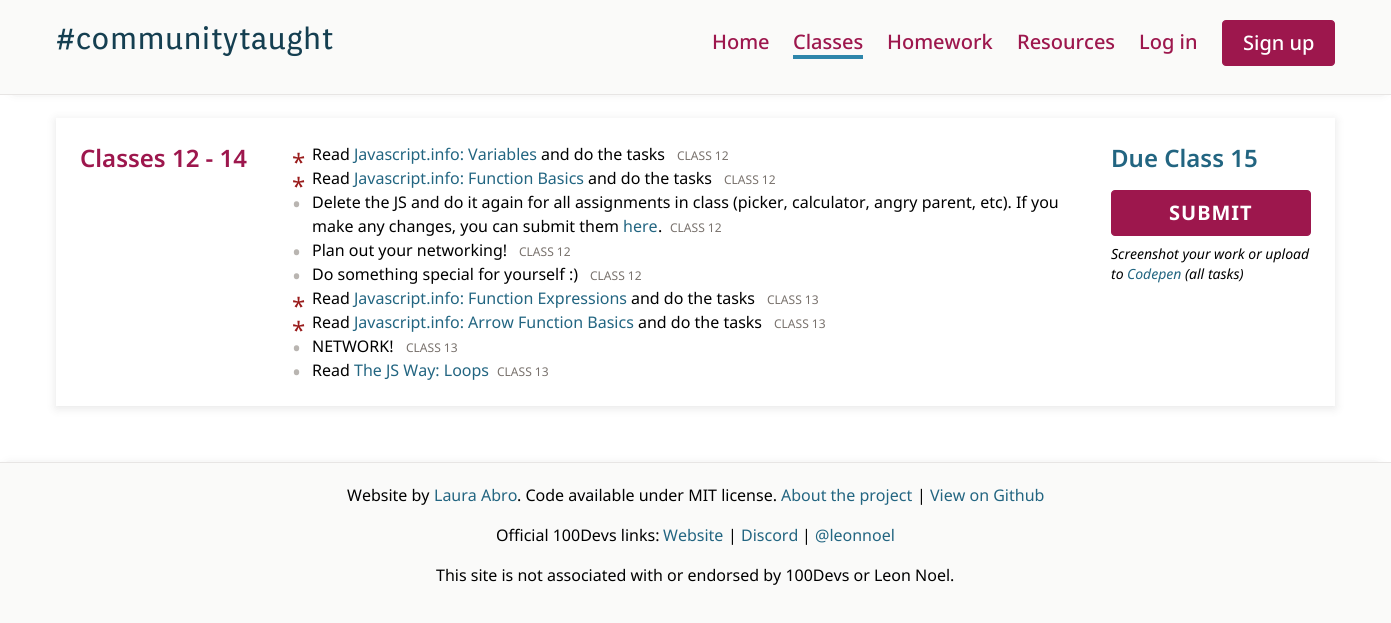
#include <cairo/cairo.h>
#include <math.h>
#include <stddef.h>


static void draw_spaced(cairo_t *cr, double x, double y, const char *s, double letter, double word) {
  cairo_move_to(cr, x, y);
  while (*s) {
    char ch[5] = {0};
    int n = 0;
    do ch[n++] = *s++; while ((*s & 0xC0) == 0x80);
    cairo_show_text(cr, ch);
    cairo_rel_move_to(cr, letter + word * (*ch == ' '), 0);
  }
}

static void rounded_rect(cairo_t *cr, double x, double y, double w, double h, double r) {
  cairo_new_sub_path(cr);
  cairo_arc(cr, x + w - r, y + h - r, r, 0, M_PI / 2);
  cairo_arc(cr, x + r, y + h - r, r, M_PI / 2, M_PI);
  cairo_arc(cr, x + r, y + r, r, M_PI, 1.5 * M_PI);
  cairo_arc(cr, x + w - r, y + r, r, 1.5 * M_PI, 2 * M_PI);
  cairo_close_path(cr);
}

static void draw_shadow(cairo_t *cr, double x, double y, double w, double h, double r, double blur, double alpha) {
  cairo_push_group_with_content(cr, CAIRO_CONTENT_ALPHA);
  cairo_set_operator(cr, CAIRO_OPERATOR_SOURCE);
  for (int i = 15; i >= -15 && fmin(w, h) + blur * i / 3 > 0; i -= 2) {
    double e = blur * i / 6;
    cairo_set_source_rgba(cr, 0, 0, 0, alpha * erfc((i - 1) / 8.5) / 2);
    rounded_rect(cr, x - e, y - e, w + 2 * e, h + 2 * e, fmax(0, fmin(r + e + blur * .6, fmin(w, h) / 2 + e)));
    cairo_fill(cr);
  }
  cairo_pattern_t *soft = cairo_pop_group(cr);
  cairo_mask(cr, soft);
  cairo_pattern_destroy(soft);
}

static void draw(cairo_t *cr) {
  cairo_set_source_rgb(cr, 1, 1, 1);
  cairo_paint(cr);
  cairo_set_source_rgb(cr, 0, 0, 0);
  draw_shadow(cr, 15, 15, 1367, 71, 0, 7.5, 0.3);
  cairo_set_source_rgb(cr, 250 / 255.0, 250 / 255.0, 249 / 255.0);
  cairo_rectangle(cr, 0, 0, 1391, 94);
  cairo_fill(cr);
  cairo_set_source_rgb(cr, 231 / 255.0, 229 / 255.0, 228 / 255.0);
  cairo_rectangle(cr, 0, 94, 1391, 1);
  cairo_fill(cr);
  cairo_set_source_rgb(cr, 46 / 255.0, 134 / 255.0, 171 / 255.0);
  cairo_rectangle(cr, 793, 55, 70, 4);
  cairo_fill(cr);
  cairo_set_source_rgb(cr, 157 / 255.0, 23 / 255.0, 77 / 255.0);
  rounded_rect(cr, 1222.5, 20.5, 112, 45, 3.5);
  cairo_fill_preserve(cr);
  cairo_set_line_width(cr, 1);
  cairo_stroke(cr);
  cairo_save(cr);
  cairo_set_fill_rule(cr, CAIRO_FILL_RULE_EVEN_ODD);
  cairo_new_path(cr);
  cairo_move_to(cr, 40, 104);
  cairo_line_to(cr, 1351, 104);
  cairo_line_to(cr, 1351, 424);
  cairo_line_to(cr, 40, 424);
  cairo_close_path(cr);
  cairo_move_to(cr, 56, 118);
  cairo_line_to(cr, 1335, 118);
  cairo_line_to(cr, 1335, 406);
  cairo_line_to(cr, 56, 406);
  cairo_close_path(cr);
  cairo_clip(cr);
  cairo_set_source_rgb(cr, 0, 0, 0);
  draw_shadow(cr, 56, 120, 1279, 288, 0, 5, 0.1);
  cairo_restore(cr);
  rounded_rect(cr, 1111.5, 190.5, 199, 45, 3.5);
  cairo_fill_preserve(cr);
  cairo_stroke(cr);
  cairo_set_source_rgb(cr, 0, 0, 0);
  draw_shadow(cr, 9, 471, 1367, 137, 0, 7.5, 0.3);
  cairo_set_source_rgb(cr, 250 / 255.0, 250 / 255.0, 249 / 255.0);
  cairo_rectangle(cr, 0, 463, 1391, 160);
  cairo_fill(cr);
  cairo_set_source_rgb(cr, 231 / 255.0, 229 / 255.0, 228 / 255.0);
  cairo_rectangle(cr, 0, 462, 1391, 1);
  cairo_fill(cr);
  cairo_select_font_face(cr, "Orienta", CAIRO_FONT_SLANT_NORMAL, CAIRO_FONT_WEIGHT_NORMAL);
  cairo_set_font_size(cr, 30);
  cairo_set_source_rgb(cr, 21 / 255.0, 63 / 255.0, 81 / 255.0);
  cairo_move_to(cr, 56, 49);
  cairo_show_text(cr, "#communitytaught");
  cairo_select_font_face(cr, "Noto Sans Medium", CAIRO_FONT_SLANT_NORMAL, CAIRO_FONT_WEIGHT_NORMAL);
  cairo_set_font_size(cr, 20);
  cairo_set_source_rgb(cr, 157 / 255.0, 23 / 255.0, 77 / 255.0);
  cairo_move_to(cr, 712, 49);
  cairo_show_text(cr, "Home");
  cairo_move_to(cr, 793, 49);
  cairo_show_text(cr, "Classes");
  cairo_move_to(cr, 887, 49);
  cairo_show_text(cr, "Homework");
  cairo_move_to(cr, 1017, 49);
  cairo_show_text(cr, "Resources");
  cairo_move_to(cr, 1139, 49);
  cairo_show_text(cr, "Log in");
  cairo_set_source_rgb(cr, 1, 1, 1);
  cairo_move_to(cr, 1243, 50);
  cairo_show_text(cr, "Sign up");
  cairo_select_font_face(cr, "Noto Sans SemiBold", CAIRO_FONT_SLANT_NORMAL, CAIRO_FONT_WEIGHT_NORMAL);
  cairo_set_font_size(cr, 24);
  cairo_set_source_rgb(cr, 157 / 255.0, 23 / 255.0, 77 / 255.0);
  cairo_move_to(cr, 80, 167);
  cairo_show_text(cr, "Classes 12 - 14");
  cairo_select_font_face(cr, "Noto Sans", CAIRO_FONT_SLANT_NORMAL, CAIRO_FONT_WEIGHT_NORMAL);
  cairo_set_source_rgb(cr, 153 / 255.0, 27 / 255.0, 27 / 255.0);
  cairo_move_to(cr, 292, 171);
  cairo_show_text(cr, "*");
  cairo_set_font_size(cr, 16);
  cairo_set_source_rgb(cr, 0, 0, 0);
  cairo_move_to(cr, 312, 160);
  cairo_show_text(cr, "Read");
  cairo_set_source_rgb(cr, 34 / 255.0, 101 / 255.0, 129 / 255.0);
  cairo_move_to(cr, 354, 160);
  cairo_show_text(cr, "Javascript.info: Variables");
  cairo_set_source_rgb(cr, 0, 0, 0);
  cairo_move_to(cr, 541, 160);
  cairo_show_text(cr, "and do the tasks");
  cairo_set_font_size(cr, 12);
  cairo_set_source_rgb(cr, 120 / 255.0, 113 / 255.0, 108 / 255.0);
  cairo_move_to(cr, 677, 160);
  cairo_show_text(cr, "CLASS 12");
  cairo_set_font_size(cr, 24);
  cairo_set_source_rgb(cr, 153 / 255.0, 27 / 255.0, 27 / 255.0);
  cairo_move_to(cr, 292, 195);
  cairo_show_text(cr, "*");
  cairo_set_font_size(cr, 16);
  cairo_set_source_rgb(cr, 0, 0, 0);
  cairo_move_to(cr, 312, 184);
  cairo_show_text(cr, "Read");
  cairo_set_source_rgb(cr, 34 / 255.0, 101 / 255.0, 129 / 255.0);
  cairo_move_to(cr, 354, 184);
  cairo_show_text(cr, "Javascript.info: Function Basics");
  cairo_set_source_rgb(cr, 0, 0, 0);
  cairo_move_to(cr, 588, 184);
  cairo_show_text(cr, "and do the tasks");
  cairo_set_font_size(cr, 12);
  cairo_set_source_rgb(cr, 120 / 255.0, 113 / 255.0, 108 / 255.0);
  cairo_move_to(cr, 724, 184);
  cairo_show_text(cr, "CLASS 12");
  cairo_set_font_size(cr, 24);
  cairo_set_source_rgb(cr, 185 / 255.0, 181 / 255.0, 177 / 255.0);
  cairo_move_to(cr, 292, 213);
  cairo_show_text(cr, "•");
  cairo_set_font_size(cr, 16);
  cairo_set_source_rgb(cr, 0, 0, 0);
  cairo_move_to(cr, 312, 208);
  cairo_show_text(cr, "Delete the JS and do it again for all assignments in class (picker, calculator, angry parent, etc). If you");
  cairo_move_to(cr, 312, 232);
  cairo_show_text(cr, "make any changes, you can submit them");
  cairo_set_source_rgb(cr, 34 / 255.0, 101 / 255.0, 129 / 255.0);
  cairo_move_to(cr, 623, 232);
  cairo_show_text(cr, "here");
  cairo_set_source_rgb(cr, 0, 0, 0);
  cairo_move_to(cr, 658, 232);
  cairo_show_text(cr, ".");
  cairo_set_font_size(cr, 12);
  cairo_set_source_rgb(cr, 120 / 255.0, 113 / 255.0, 108 / 255.0);
  cairo_move_to(cr, 670, 232);
  cairo_show_text(cr, "CLASS 12");
  cairo_set_font_size(cr, 24);
  cairo_set_source_rgb(cr, 185 / 255.0, 181 / 255.0, 177 / 255.0);
  cairo_move_to(cr, 292, 261);
  cairo_show_text(cr, "•");
  cairo_set_font_size(cr, 16);
  cairo_set_source_rgb(cr, 0, 0, 0);
  cairo_move_to(cr, 312, 256);
  cairo_show_text(cr, "Plan out your networking!");
  cairo_set_font_size(cr, 12);
  cairo_set_source_rgb(cr, 120 / 255.0, 113 / 255.0, 108 / 255.0);
  cairo_move_to(cr, 519, 256);
  cairo_show_text(cr, "CLASS 12");
  cairo_set_font_size(cr, 24);
  cairo_set_source_rgb(cr, 185 / 255.0, 181 / 255.0, 177 / 255.0);
  cairo_move_to(cr, 292, 285);
  cairo_show_text(cr, "•");
  cairo_set_font_size(cr, 16);
  cairo_set_source_rgb(cr, 0, 0, 0);
  cairo_move_to(cr, 312, 280);
  cairo_show_text(cr, "Do something special for yourself :)");
  cairo_set_font_size(cr, 12);
  cairo_set_source_rgb(cr, 120 / 255.0, 113 / 255.0, 108 / 255.0);
  cairo_move_to(cr, 590, 280);
  cairo_show_text(cr, "CLASS 12");
  cairo_set_font_size(cr, 24);
  cairo_set_source_rgb(cr, 153 / 255.0, 27 / 255.0, 27 / 255.0);
  cairo_move_to(cr, 292, 315);
  cairo_show_text(cr, "*");
  cairo_set_font_size(cr, 16);
  cairo_set_source_rgb(cr, 0, 0, 0);
  cairo_move_to(cr, 312, 304);
  cairo_show_text(cr, "Read");
  cairo_set_source_rgb(cr, 34 / 255.0, 101 / 255.0, 129 / 255.0);
  cairo_move_to(cr, 354, 304);
  cairo_show_text(cr, "Javascript.info: Function Expressions");
  cairo_set_source_rgb(cr, 0, 0, 0);
  cairo_move_to(cr, 631, 304);
  cairo_show_text(cr, "and do the tasks");
  cairo_set_font_size(cr, 12);
  cairo_set_source_rgb(cr, 120 / 255.0, 113 / 255.0, 108 / 255.0);
  cairo_move_to(cr, 767, 304);
  cairo_show_text(cr, "CLASS 13");
  cairo_set_font_size(cr, 24);
  cairo_set_source_rgb(cr, 153 / 255.0, 27 / 255.0, 27 / 255.0);
  cairo_move_to(cr, 292, 339);
  cairo_show_text(cr, "*");
  cairo_set_font_size(cr, 16);
  cairo_set_source_rgb(cr, 0, 0, 0);
  cairo_move_to(cr, 312, 328);
  cairo_show_text(cr, "Read");
  cairo_set_source_rgb(cr, 34 / 255.0, 101 / 255.0, 129 / 255.0);
  cairo_move_to(cr, 354, 328);
  cairo_show_text(cr, "Javascript.info: Arrow Function Basics");
  cairo_set_source_rgb(cr, 0, 0, 0);
  cairo_move_to(cr, 638, 328);
  cairo_show_text(cr, "and do the tasks");
  cairo_set_font_size(cr, 12);
  cairo_set_source_rgb(cr, 120 / 255.0, 113 / 255.0, 108 / 255.0);
  cairo_move_to(cr, 774, 328);
  cairo_show_text(cr, "CLASS 13");
  cairo_set_font_size(cr, 24);
  cairo_set_source_rgb(cr, 185 / 255.0, 181 / 255.0, 177 / 255.0);
  cairo_move_to(cr, 292, 357);
  cairo_show_text(cr, "•");
  cairo_set_font_size(cr, 16);
  cairo_set_source_rgb(cr, 0, 0, 0);
  cairo_move_to(cr, 312, 352);
  cairo_show_text(cr, "NETWORK!");
  cairo_set_font_size(cr, 12);
  cairo_set_source_rgb(cr, 120 / 255.0, 113 / 255.0, 108 / 255.0);
  cairo_move_to(cr, 406, 352);
  cairo_show_text(cr, "CLASS 13");
  cairo_set_font_size(cr, 24);
  cairo_set_source_rgb(cr, 185 / 255.0, 181 / 255.0, 177 / 255.0);
  cairo_move_to(cr, 292, 381);
  cairo_show_text(cr, "•");
  cairo_set_font_size(cr, 16);
  cairo_set_source_rgb(cr, 0, 0, 0);
  cairo_move_to(cr, 312, 376);
  cairo_show_text(cr, "Read");
  cairo_set_source_rgb(cr, 34 / 255.0, 101 / 255.0, 129 / 255.0);
  cairo_move_to(cr, 354, 376);
  cairo_show_text(cr, "The JS Way: Loops");
  cairo_set_font_size(cr, 12);
  cairo_set_source_rgb(cr, 120 / 255.0, 113 / 255.0, 108 / 255.0);
  cairo_move_to(cr, 497, 376);
  cairo_show_text(cr, "CLASS 13");
  cairo_select_font_face(cr, "Noto Sans SemiBold", CAIRO_FONT_SLANT_NORMAL, CAIRO_FONT_WEIGHT_NORMAL);
  cairo_set_font_size(cr, 24);
  cairo_set_source_rgb(cr, 34 / 255.0, 101 / 255.0, 129 / 255.0);
  cairo_move_to(cr, 1111, 167);
  cairo_show_text(cr, "Due Class 15");
  cairo_select_font_face(cr, "Noto Sans", CAIRO_FONT_SLANT_NORMAL, CAIRO_FONT_WEIGHT_BOLD);
  cairo_set_font_size(cr, 20);
  cairo_set_source_rgb(cr, 1, 1, 1);
  draw_spaced(cr, 1169, 220, "SUBMIT", 1, 0);
  cairo_select_font_face(cr, "Noto Sans", CAIRO_FONT_SLANT_ITALIC, CAIRO_FONT_WEIGHT_NORMAL);
  cairo_set_font_size(cr, 14);
  cairo_set_source_rgb(cr, 0, 0, 0);
  cairo_move_to(cr, 1111, 259);
  cairo_show_text(cr, "Screenshot your work or upload");
  cairo_move_to(cr, 1111, 279);
  cairo_show_text(cr, "to");
  cairo_set_source_rgb(cr, 34 / 255.0, 101 / 255.0, 129 / 255.0);
  cairo_move_to(cr, 1127, 279);
  cairo_show_text(cr, "Codepen");
  cairo_set_source_rgb(cr, 0, 0, 0);
  cairo_move_to(cr, 1185, 279);
  cairo_show_text(cr, "(all tasks)");
  cairo_select_font_face(cr, "Noto Sans", CAIRO_FONT_SLANT_NORMAL, CAIRO_FONT_WEIGHT_NORMAL);
  cairo_set_font_size(cr, 16);
  cairo_move_to(cr, 347, 501);
  cairo_show_text(cr, "Website by");
  cairo_set_source_rgb(cr, 34 / 255.0, 101 / 255.0, 129 / 255.0);
  cairo_move_to(cr, 434, 501);
  cairo_show_text(cr, "Laura Abro");
  cairo_set_source_rgb(cr, 0, 0, 0);
  cairo_move_to(cr, 517, 501);
  cairo_show_text(cr, ". Code available under MIT license.");
  cairo_set_source_rgb(cr, 34 / 255.0, 101 / 255.0, 129 / 255.0);
  cairo_move_to(cr, 781, 501);
  cairo_show_text(cr, "About the project");
  cairo_set_source_rgb(cr, 0, 0, 0);
  cairo_move_to(cr, 917, 501);
  cairo_show_text(cr, "|");
  cairo_set_source_rgb(cr, 34 / 255.0, 101 / 255.0, 129 / 255.0);
  cairo_move_to(cr, 930, 501);
  cairo_show_text(cr, "View on Github");
  cairo_set_source_rgb(cr, 0, 0, 0);
  cairo_move_to(cr, 496, 541);
  cairo_show_text(cr, "Official 100Devs links:");
  cairo_set_source_rgb(cr, 34 / 255.0, 101 / 255.0, 129 / 255.0);
  cairo_move_to(cr, 663, 541);
  cairo_show_text(cr, "Website");
  cairo_set_source_rgb(cr, 0, 0, 0);
  cairo_move_to(cr, 728, 541);
  cairo_show_text(cr, "|");
  cairo_set_source_rgb(cr, 34 / 255.0, 101 / 255.0, 129 / 255.0);
  cairo_move_to(cr, 741, 541);
  cairo_show_text(cr, "Discord");
  cairo_set_source_rgb(cr, 0, 0, 0);
  cairo_move_to(cr, 802, 541);
  cairo_show_text(cr, "|");
  cairo_set_source_rgb(cr, 34 / 255.0, 101 / 255.0, 129 / 255.0);
  cairo_move_to(cr, 815, 541);
  cairo_show_text(cr, "@leonnoel");
  cairo_set_source_rgb(cr, 0, 0, 0);
  cairo_move_to(cr, 436, 581);
  cairo_show_text(cr, "This site is not associated with or endorsed by 100Devs or Leon Noel.");
}

int main(void) {
  cairo_surface_t *surface = cairo_image_surface_create(CAIRO_FORMAT_RGB24, 1391, 623);
  cairo_t *cr = cairo_create(surface);
  cairo_font_options_t *options = cairo_font_options_create();
  cairo_font_options_set_hint_metrics(options, CAIRO_HINT_METRICS_OFF);
  cairo_font_options_set_hint_style(options, CAIRO_HINT_STYLE_NONE);
  cairo_set_font_options(cr, options);
  cairo_set_miter_limit(cr, 4);
  draw(cr);
  cairo_surface_write_to_png(surface, "out.png");
  cairo_font_options_destroy(options);
  cairo_destroy(cr);
  cairo_surface_destroy(surface);
  return 0;
}
